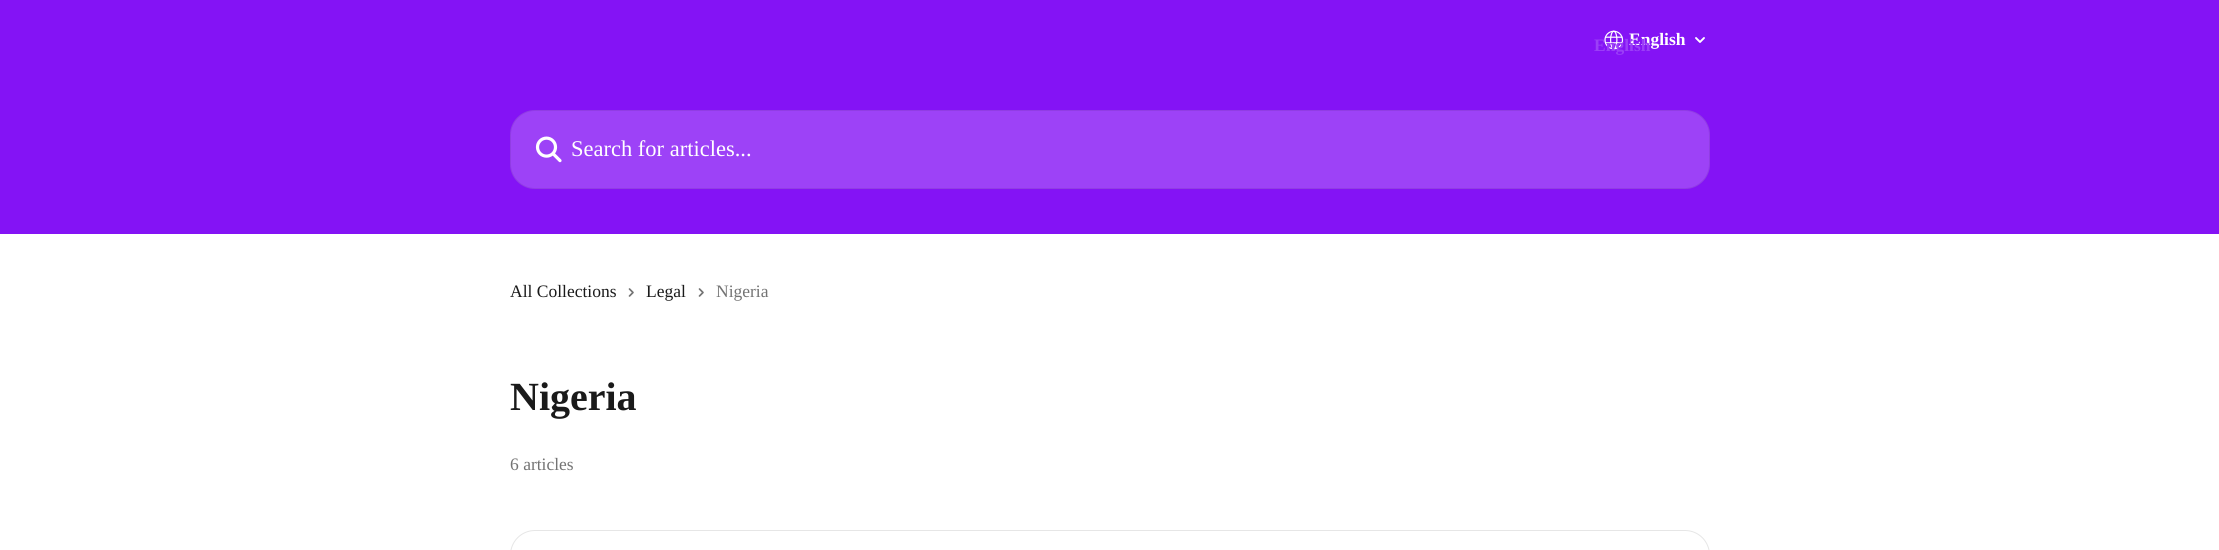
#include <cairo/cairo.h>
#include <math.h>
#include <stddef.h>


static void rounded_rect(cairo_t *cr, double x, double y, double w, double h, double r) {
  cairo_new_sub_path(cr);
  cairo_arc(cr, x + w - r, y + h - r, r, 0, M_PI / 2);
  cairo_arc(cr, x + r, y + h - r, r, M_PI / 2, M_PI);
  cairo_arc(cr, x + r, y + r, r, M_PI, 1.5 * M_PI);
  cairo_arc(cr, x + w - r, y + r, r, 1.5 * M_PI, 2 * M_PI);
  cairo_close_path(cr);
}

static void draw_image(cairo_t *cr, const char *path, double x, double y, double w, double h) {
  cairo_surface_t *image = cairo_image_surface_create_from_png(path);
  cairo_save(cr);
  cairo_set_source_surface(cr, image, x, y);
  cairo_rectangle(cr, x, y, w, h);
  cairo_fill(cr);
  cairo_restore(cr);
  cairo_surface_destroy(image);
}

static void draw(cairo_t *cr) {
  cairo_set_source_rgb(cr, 1, 1, 1);
  cairo_paint(cr);
  cairo_set_source_rgb(cr, 132 / 255.0, 19 / 255.0, 245 / 255.0);
  cairo_rectangle(cr, 0, 0, 2219, 234);
  cairo_fill(cr);
  draw_image(cr, "images/1.png", 1604, 30, 20, 20);
  cairo_new_path(cr);
  cairo_move_to(cr, 1696, 38);
  cairo_line_to(cr, 1700, 42);
  cairo_line_to(cr, 1704, 38);
  cairo_set_source_rgb(cr, 1, 1, 1);
  cairo_set_line_width(cr, 1.9);
  cairo_set_line_cap(cr, CAIRO_LINE_CAP_ROUND);
  cairo_set_line_join(cr, CAIRO_LINE_JOIN_ROUND);
  cairo_stroke(cr);
  cairo_set_source_rgba(cr, 1, 1, 1, 0.2);
  rounded_rect(cr, 510, 110, 1200, 79, 25);
  cairo_fill(cr);
  rounded_rect(cr, 510.5, 110.5, 1199, 78, 24.5);
  cairo_set_source_rgba(cr, 0, 0, 0, 0.08);
  cairo_set_line_width(cr, 1);
  cairo_set_line_cap(cr, CAIRO_LINE_CAP_BUTT);
  cairo_set_line_join(cr, CAIRO_LINE_JOIN_MITER);
  cairo_stroke(cr);
  draw_image(cr, "images/2.png", 535, 136, 27, 27);
  draw_image(cr, "images/3.png", 628, 288, 6, 9);
  draw_image(cr, "images/3.png", 698, 288, 6, 9);
  rounded_rect(cr, 510.5, 530.5, 1199, 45, 24.5);
  cairo_set_source_rgb(cr, 230 / 255.0, 230 / 255.0, 230 / 255.0);
  cairo_stroke(cr);
  cairo_select_font_face(cr, "Liberation Serif", CAIRO_FONT_SLANT_NORMAL, CAIRO_FONT_WEIGHT_BOLD);
  cairo_set_font_size(cr, 17.5);
  cairo_set_source_rgb(cr, 1, 1, 1);
  cairo_move_to(cr, 1629, 45);
  cairo_show_text(cr, "English");
  cairo_set_source_rgb(cr, 155 / 255.0, 63 / 255.0, 247 / 255.0);
  cairo_move_to(cr, 1594, 51);
  cairo_show_text(cr, "English");
  cairo_select_font_face(cr, "Liberation Serif", CAIRO_FONT_SLANT_NORMAL, CAIRO_FONT_WEIGHT_NORMAL);
  cairo_set_font_size(cr, 22.5);
  cairo_set_source_rgb(cr, 1, 1, 1);
  cairo_move_to(cr, 571, 156);
  cairo_show_text(cr, "Search for articles...");
  cairo_set_font_size(cr, 17.5);
  cairo_set_source_rgb(cr, 26 / 255.0, 26 / 255.0, 26 / 255.0);
  cairo_move_to(cr, 510, 297);
  cairo_show_text(cr, "All Collections");
  cairo_move_to(cr, 646, 297);
  cairo_show_text(cr, "Legal");
  cairo_set_source_rgb(cr, 115 / 255.0, 115 / 255.0, 115 / 255.0);
  cairo_move_to(cr, 716, 297);
  cairo_show_text(cr, "Nigeria");
  cairo_select_font_face(cr, "Liberation Serif", CAIRO_FONT_SLANT_NORMAL, CAIRO_FONT_WEIGHT_BOLD);
  cairo_set_font_size(cr, 40);
  cairo_set_source_rgb(cr, 26 / 255.0, 26 / 255.0, 26 / 255.0);
  cairo_move_to(cr, 510, 410);
  cairo_show_text(cr, "Nigeria");
  cairo_select_font_face(cr, "Liberation Serif", CAIRO_FONT_SLANT_NORMAL, CAIRO_FONT_WEIGHT_NORMAL);
  cairo_set_font_size(cr, 17.5);
  cairo_set_source_rgb(cr, 115 / 255.0, 115 / 255.0, 115 / 255.0);
  cairo_move_to(cr, 510, 470);
  cairo_show_text(cr, "6 articles");
}

int main(void) {
  cairo_surface_t *surface = cairo_image_surface_create(CAIRO_FORMAT_RGB24, 2219, 550);
  cairo_t *cr = cairo_create(surface);
  cairo_font_options_t *options = cairo_font_options_create();
  cairo_font_options_set_hint_metrics(options, CAIRO_HINT_METRICS_OFF);
  cairo_font_options_set_hint_style(options, CAIRO_HINT_STYLE_NONE);
  cairo_set_font_options(cr, options);
  cairo_set_miter_limit(cr, 4);
  draw(cr);
  cairo_surface_write_to_png(surface, "out.png");
  cairo_font_options_destroy(options);
  cairo_destroy(cr);
  cairo_surface_destroy(surface);
  return 0;
}
